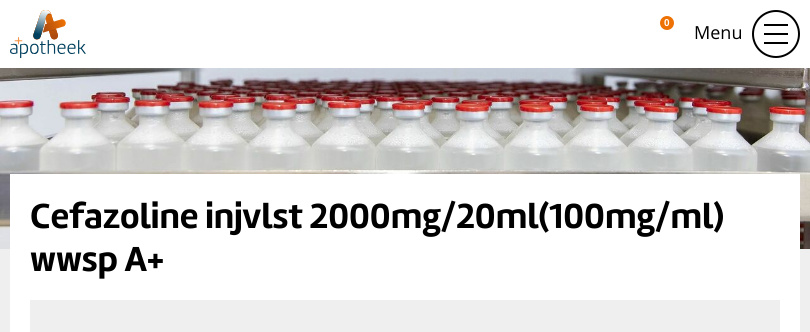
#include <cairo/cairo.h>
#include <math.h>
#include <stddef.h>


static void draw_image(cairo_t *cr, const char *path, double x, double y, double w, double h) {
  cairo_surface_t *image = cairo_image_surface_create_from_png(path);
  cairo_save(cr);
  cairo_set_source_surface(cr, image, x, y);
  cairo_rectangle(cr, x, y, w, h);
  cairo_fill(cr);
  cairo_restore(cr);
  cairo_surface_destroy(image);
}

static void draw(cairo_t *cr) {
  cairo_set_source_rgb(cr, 238 / 255.0, 239 / 255.0, 238 / 255.0);
  cairo_paint(cr);
  cairo_set_source_rgb(cr, 1, 1, 1);
  cairo_rectangle(cr, 0, 0, 810, 68);
  cairo_fill(cr);
  draw_image(cr, "images/1.png", 10, 10, 76, 48);
  cairo_set_source_rgb(cr, 238 / 255.0, 114 / 255.0, 3 / 255.0);
  cairo_arc(cr, 667, 23, 7, 0, 2 * M_PI);
  cairo_fill(cr);
  cairo_arc(cr, 776, 34, 23, 0, 2 * M_PI);
  cairo_set_source_rgb(cr, 0, 0, 0);
  cairo_stroke(cr);
  cairo_rectangle(cr, 764, 24, 24, 2);
  cairo_fill(cr);
  cairo_rectangle(cr, 764, 33, 24, 2);
  cairo_fill(cr);
  cairo_rectangle(cr, 764, 42, 24, 2);
  cairo_fill(cr);
  draw_image(cr, "images/2.png", 0, 68, 810, 181);
  cairo_set_source_rgb(cr, 1, 1, 1);
  cairo_rectangle(cr, 10, 174, 790, 158);
  cairo_fill(cr);
  cairo_set_source_rgb(cr, 238 / 255.0, 239 / 255.0, 238 / 255.0);
  cairo_rectangle(cr, 30, 300, 750, 32);
  cairo_fill(cr);
  cairo_select_font_face(cr, "Liberation Sans", CAIRO_FONT_SLANT_NORMAL, CAIRO_FONT_WEIGHT_BOLD);
  cairo_set_font_size(cr, 10);
  cairo_set_source_rgb(cr, 1, 1, 1);
  cairo_move_to(cr, 664, 26);
  cairo_show_text(cr, "0");
  cairo_select_font_face(cr, "Open Sans", CAIRO_FONT_SLANT_NORMAL, CAIRO_FONT_WEIGHT_NORMAL);
  cairo_set_font_size(cr, 18);
  cairo_set_source_rgb(cr, 0, 0, 0);
  cairo_move_to(cr, 694, 39);
  cairo_show_text(cr, "Menu");
  cairo_select_font_face(cr, "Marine", CAIRO_FONT_SLANT_NORMAL, CAIRO_FONT_WEIGHT_BOLD);
  cairo_set_font_size(cr, 36);
  cairo_move_to(cr, 30, 228);
  cairo_show_text(cr, "Cefazoline injvlst 2000mg/20ml(100mg/ml)");
  cairo_move_to(cr, 30, 271);
  cairo_show_text(cr, "wwsp A+");
}

int main(void) {
  cairo_surface_t *surface = cairo_image_surface_create(CAIRO_FORMAT_RGB24, 810, 332);
  cairo_t *cr = cairo_create(surface);
  cairo_font_options_t *options = cairo_font_options_create();
  cairo_font_options_set_hint_metrics(options, CAIRO_HINT_METRICS_OFF);
  cairo_font_options_set_hint_style(options, CAIRO_HINT_STYLE_NONE);
  cairo_set_font_options(cr, options);
  cairo_set_miter_limit(cr, 4);
  draw(cr);
  cairo_surface_write_to_png(surface, "out.png");
  cairo_font_options_destroy(options);
  cairo_destroy(cr);
  cairo_surface_destroy(surface);
  return 0;
}
